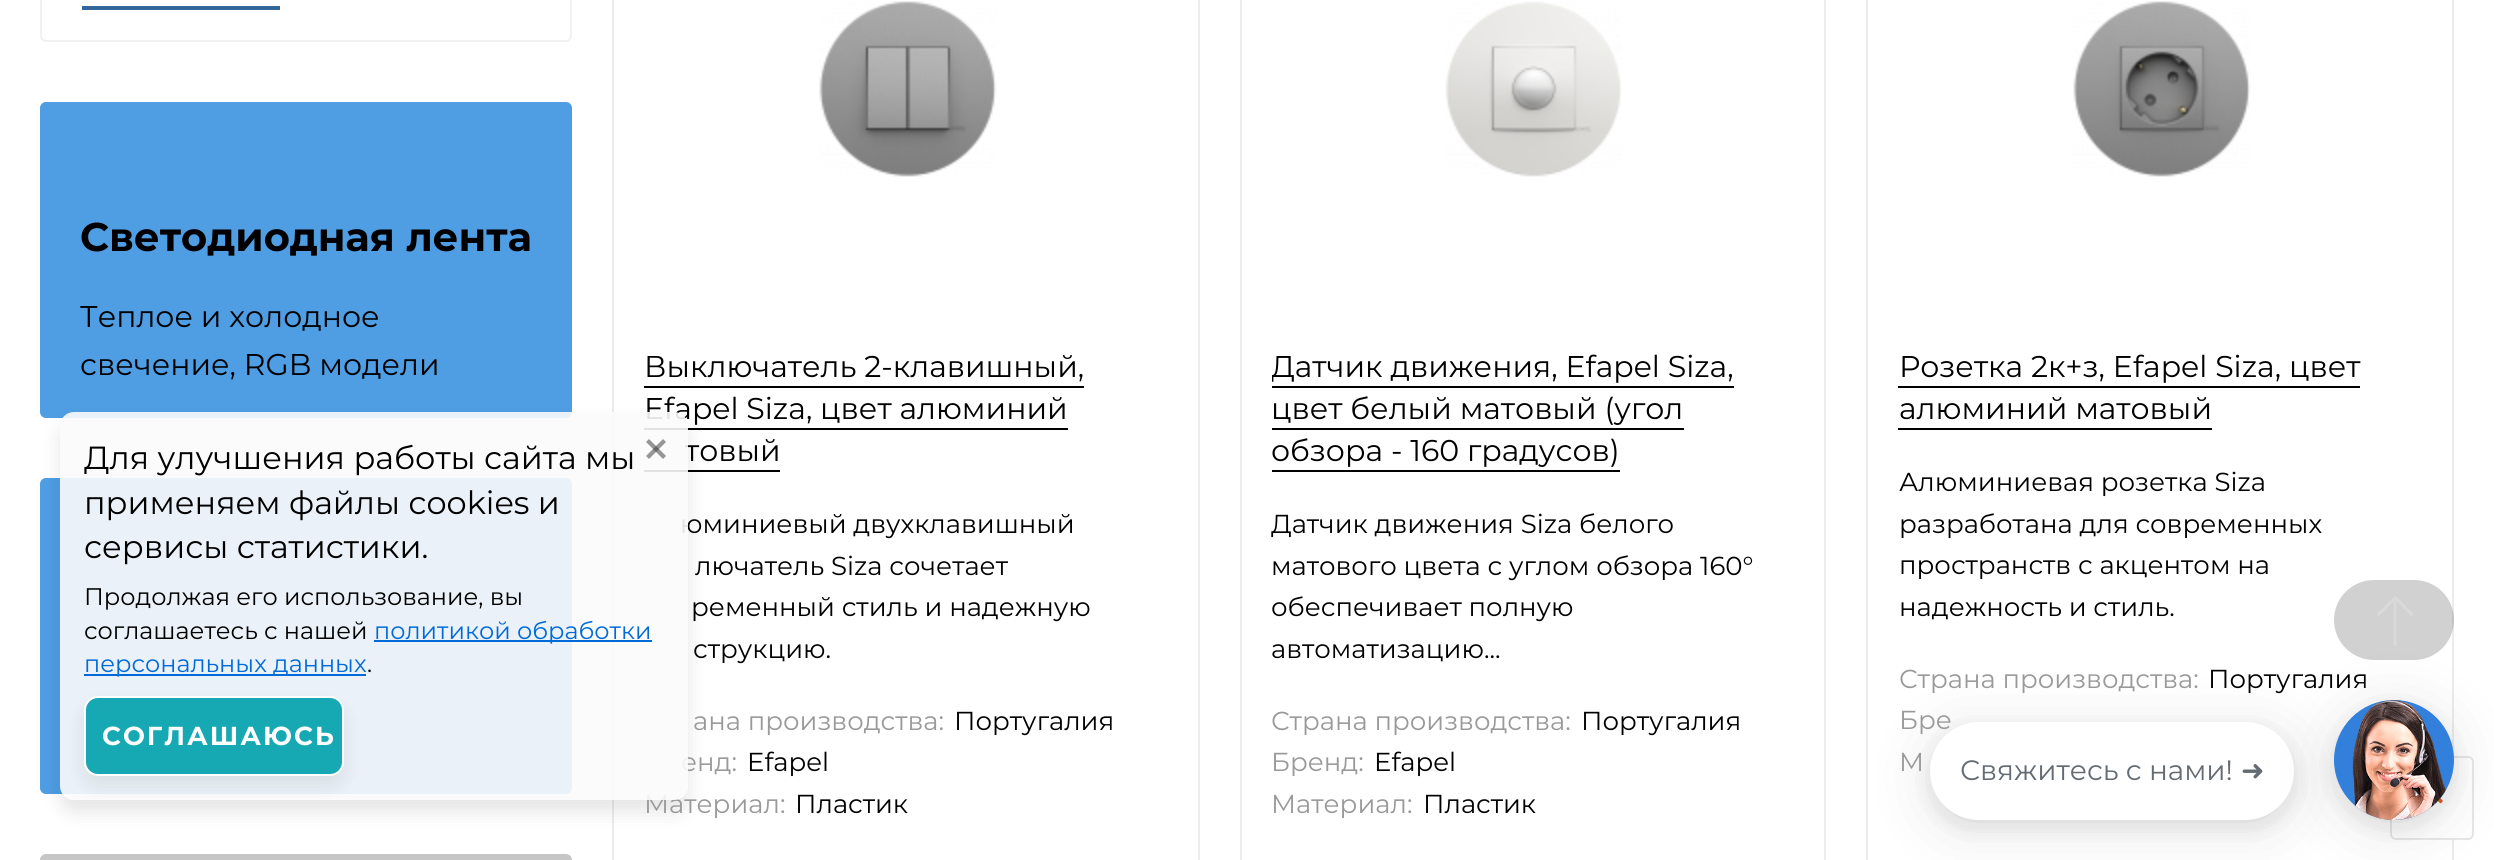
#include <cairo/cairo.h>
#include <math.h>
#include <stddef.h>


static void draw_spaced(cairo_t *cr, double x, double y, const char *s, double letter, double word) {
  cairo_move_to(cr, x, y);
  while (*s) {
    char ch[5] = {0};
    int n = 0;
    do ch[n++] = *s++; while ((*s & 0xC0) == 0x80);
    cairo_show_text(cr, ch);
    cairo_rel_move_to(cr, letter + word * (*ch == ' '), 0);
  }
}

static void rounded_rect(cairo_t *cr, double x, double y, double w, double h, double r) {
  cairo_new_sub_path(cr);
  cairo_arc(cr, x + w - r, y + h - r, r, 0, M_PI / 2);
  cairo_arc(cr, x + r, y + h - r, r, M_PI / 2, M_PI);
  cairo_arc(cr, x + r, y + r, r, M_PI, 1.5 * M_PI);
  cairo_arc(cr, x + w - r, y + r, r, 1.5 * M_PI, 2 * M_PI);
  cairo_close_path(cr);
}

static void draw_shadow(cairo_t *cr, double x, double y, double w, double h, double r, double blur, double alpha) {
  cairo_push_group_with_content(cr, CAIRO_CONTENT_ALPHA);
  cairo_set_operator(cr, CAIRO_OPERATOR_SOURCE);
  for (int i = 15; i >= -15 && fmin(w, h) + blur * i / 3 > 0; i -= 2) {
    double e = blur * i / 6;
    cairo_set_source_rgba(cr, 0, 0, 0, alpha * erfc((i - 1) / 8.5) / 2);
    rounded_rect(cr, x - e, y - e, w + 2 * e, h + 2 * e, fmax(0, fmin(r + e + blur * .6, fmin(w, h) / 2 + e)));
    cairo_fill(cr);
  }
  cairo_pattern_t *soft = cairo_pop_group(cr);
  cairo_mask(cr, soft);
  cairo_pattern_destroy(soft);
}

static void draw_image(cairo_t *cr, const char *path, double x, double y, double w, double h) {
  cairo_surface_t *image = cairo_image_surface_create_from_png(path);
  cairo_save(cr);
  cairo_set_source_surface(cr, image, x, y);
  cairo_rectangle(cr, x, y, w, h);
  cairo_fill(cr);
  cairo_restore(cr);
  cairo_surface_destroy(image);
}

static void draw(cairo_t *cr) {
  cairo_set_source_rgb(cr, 1, 1, 1);
  cairo_paint(cr);
  rounded_rect(cr, 41, -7, 530, 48, 5);
  cairo_set_source_rgb(cr, 241 / 255.0, 241 / 255.0, 241 / 255.0);
  cairo_stroke(cr);
  cairo_set_source_rgb(cr, 51 / 255.0, 102 / 255.0, 153 / 255.0);
  cairo_rectangle(cr, 82, 6, 198, 4);
  cairo_fill(cr);
  cairo_set_source_rgb(cr, 79 / 255.0, 157 / 255.0, 227 / 255.0);
  rounded_rect(cr, 40, 102, 532, 316, 6);
  cairo_fill(cr);
  rounded_rect(cr, 40, 478, 532, 316, 6);
  cairo_fill(cr);
  cairo_set_source_rgb(cr, 198 / 255.0, 198 / 255.0, 198 / 255.0);
  rounded_rect(cr, 40, 854, 532, 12, 6);
  cairo_fill(cr);
  cairo_rectangle(cr, 613, -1, 586, 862);
  cairo_set_source_rgb(cr, 236 / 255.0, 236 / 255.0, 236 / 255.0);
  cairo_stroke(cr);
  draw_image(cr, "images/1.png", 819, 1, 178, 176);
  cairo_set_source_rgb(cr, 0, 0, 0);
  cairo_rectangle(cr, 644, 386, 440, 2);
  cairo_fill(cr);
  cairo_rectangle(cr, 644, 428, 424, 2);
  cairo_fill(cr);
  cairo_rectangle(cr, 644, 470, 136, 2);
  cairo_fill(cr);
  cairo_rectangle(cr, 1241, -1, 584, 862);
  cairo_set_source_rgb(cr, 236 / 255.0, 236 / 255.0, 236 / 255.0);
  cairo_stroke(cr);
  draw_image(cr, "images/2.png", 1445, 1, 177, 176);
  cairo_set_source_rgb(cr, 0, 0, 0);
  cairo_rectangle(cr, 1272, 386, 462, 2);
  cairo_fill(cr);
  cairo_rectangle(cr, 1272, 428, 412, 2);
  cairo_fill(cr);
  cairo_rectangle(cr, 1272, 470, 348, 2);
  cairo_fill(cr);
  cairo_rectangle(cr, 1867, -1, 586, 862);
  cairo_set_source_rgb(cr, 236 / 255.0, 236 / 255.0, 236 / 255.0);
  cairo_stroke(cr);
  draw_image(cr, "images/3.png", 2073, 1, 178, 176);
  cairo_set_source_rgb(cr, 0, 0, 0);
  cairo_rectangle(cr, 1898, 386, 462, 2);
  cairo_fill(cr);
  cairo_rectangle(cr, 1898, 428, 314, 2);
  cairo_fill(cr);
  cairo_save(cr);
  cairo_set_fill_rule(cr, CAIRO_FILL_RULE_EVEN_ODD);
  cairo_new_path(cr);
  cairo_move_to(cr, 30, 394);
  cairo_line_to(cr, 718, 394);
  cairo_line_to(cr, 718, 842);
  cairo_line_to(cr, 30, 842);
  cairo_close_path(cr);
  cairo_move_to(cr, 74, 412);
  cairo_line_to(cr, 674, 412);
  cairo_curve_to(cr, 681.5, 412, 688, 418.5, 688, 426);
  cairo_line_to(cr, 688, 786);
  cairo_curve_to(cr, 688, 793.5, 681.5, 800, 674, 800);
  cairo_line_to(cr, 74, 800);
  cairo_curve_to(cr, 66.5, 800, 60, 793.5, 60, 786);
  cairo_line_to(cr, 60, 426);
  cairo_curve_to(cr, 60, 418.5, 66.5, 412, 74, 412);
  cairo_close_path(cr);
  cairo_clip(cr);
  cairo_set_source_rgb(cr, 0, 0, 0);
  draw_shadow(cr, 60, 424, 628, 388, 14, 9.5, 0.1);
  cairo_restore(cr);
  cairo_set_source_rgb(cr, 0, 0, 0);
  draw_shadow(cr, 1930, 730, 364, 98, 49, 30, 0.1);
  cairo_set_source_rgba(cr, 0, 0, 0, 0.18);
  rounded_rect(cr, 2334, 580, 120, 80, 40);
  cairo_fill(cr);
  draw_image(cr, "images/4.png", 2377, 596, 36, 50);
  cairo_set_source_rgb(cr, 0, 0, 0);
  draw_shadow(cr, 1930, 730, 364, 98, 49, 10, 0.08);
  cairo_set_source_rgb(cr, 1, 1, 1);
  rounded_rect(cr, 2391, 757, 82, 82, 5);
  cairo_fill_preserve(cr);
  cairo_set_source_rgb(cr, 231 / 255.0, 231 / 255.0, 231 / 255.0);
  cairo_stroke(cr);
  draw_image(cr, "images/6.png", 2437, 798, 6, 6);
  cairo_set_source_rgb(cr, 0, 0, 0);
  draw_shadow(cr, 2334, 708, 120, 120, 60, 10, 0.08);
  cairo_select_font_face(cr, "Montserrat", CAIRO_FONT_SLANT_NORMAL, CAIRO_FONT_WEIGHT_BOLD);
  cairo_set_font_size(cr, 40);
  cairo_set_source_rgb(cr, 0, 0, 0);
  cairo_move_to(cr, 80, 251);
  cairo_show_text(cr, "Светодиодная лента");
  cairo_select_font_face(cr, "Montserrat", CAIRO_FONT_SLANT_NORMAL, CAIRO_FONT_WEIGHT_NORMAL);
  cairo_set_font_size(cr, 30);
  cairo_move_to(cr, 80, 327);
  cairo_show_text(cr, "Теплое и холодное");
  cairo_move_to(cr, 80, 375);
  cairo_show_text(cr, "свечение, RGB модели");
  cairo_move_to(cr, 644, 377);
  cairo_show_text(cr, "Выключатель 2-клавишный,");
  cairo_move_to(cr, 644, 419);
  cairo_show_text(cr, "Efapel Siza, цвет алюминий");
  cairo_move_to(cr, 685, 461);
  cairo_show_text(cr, "товый");
  cairo_set_font_size(cr, 26);
  cairo_move_to(cr, 680, 533);
  cairo_show_text(cr, "юминиевый двухклавишный");
  cairo_move_to(cr, 695, 575);
  cairo_show_text(cr, "лючатель Siza сочетает");
  cairo_move_to(cr, 691, 616);
  cairo_show_text(cr, "ременный стиль и надежную");
  cairo_move_to(cr, 693, 658);
  cairo_show_text(cr, "струкцию.");
  cairo_set_source_rgb(cr, 153 / 255.0, 153 / 255.0, 153 / 255.0);
  cairo_move_to(cr, 693, 730);
  cairo_show_text(cr, "ана производства:");
  cairo_set_source_rgb(cr, 0, 0, 0);
  cairo_move_to(cr, 954, 730);
  cairo_show_text(cr, "Португалия");
  cairo_set_source_rgb(cr, 153 / 255.0, 153 / 255.0, 153 / 255.0);
  cairo_move_to(cr, 681, 771);
  cairo_show_text(cr, "енд:");
  cairo_set_source_rgb(cr, 0, 0, 0);
  cairo_move_to(cr, 747, 771);
  cairo_show_text(cr, "Efapel");
  cairo_set_source_rgb(cr, 153 / 255.0, 153 / 255.0, 153 / 255.0);
  cairo_move_to(cr, 644, 813);
  cairo_show_text(cr, "Материал:");
  cairo_set_source_rgb(cr, 0, 0, 0);
  cairo_move_to(cr, 795, 813);
  cairo_show_text(cr, "Пластик");
  cairo_save(cr);
  cairo_rectangle(cr, 1272, 346, 522, 128);
  cairo_clip(cr);
  cairo_set_font_size(cr, 30);
  cairo_move_to(cr, 1271, 377);
  cairo_show_text(cr, "Датчик движения, Efapel Siza,");
  cairo_restore(cr);
  cairo_set_font_size(cr, 30);
  cairo_move_to(cr, 1271, 419);
  cairo_show_text(cr, "цвет белый матовый (угол");
  cairo_move_to(cr, 1271, 461);
  cairo_show_text(cr, "обзора - 160 градусов)");
  cairo_set_font_size(cr, 26);
  cairo_move_to(cr, 1271, 533);
  cairo_show_text(cr, "Датчик движения Siza белого");
  cairo_move_to(cr, 1271, 575);
  cairo_show_text(cr, "матового цвета с углом обзора 160°");
  cairo_move_to(cr, 1271, 616);
  cairo_show_text(cr, "обеспечивает полную");
  cairo_move_to(cr, 1271, 658);
  cairo_show_text(cr, "автоматизацию...");
  cairo_set_source_rgb(cr, 153 / 255.0, 153 / 255.0, 153 / 255.0);
  cairo_move_to(cr, 1271, 730);
  cairo_show_text(cr, "Страна производства:");
  cairo_set_source_rgb(cr, 0, 0, 0);
  cairo_move_to(cr, 1581, 730);
  cairo_show_text(cr, "Португалия");
  cairo_set_source_rgb(cr, 153 / 255.0, 153 / 255.0, 153 / 255.0);
  cairo_move_to(cr, 1271, 771);
  cairo_show_text(cr, "Бренд:");
  cairo_set_source_rgb(cr, 0, 0, 0);
  cairo_move_to(cr, 1374, 771);
  cairo_show_text(cr, "Efapel");
  cairo_set_source_rgb(cr, 153 / 255.0, 153 / 255.0, 153 / 255.0);
  cairo_move_to(cr, 1271, 813);
  cairo_show_text(cr, "Материал:");
  cairo_set_source_rgb(cr, 0, 0, 0);
  cairo_move_to(cr, 1423, 813);
  cairo_show_text(cr, "Пластик");
  cairo_set_font_size(cr, 30);
  cairo_move_to(cr, 1899, 377);
  cairo_show_text(cr, "Розетка 2к+з, Efapel Siza, цвет");
  cairo_move_to(cr, 1899, 419);
  cairo_show_text(cr, "алюминий матовый");
  cairo_set_font_size(cr, 26);
  cairo_move_to(cr, 1899, 491);
  cairo_show_text(cr, "Алюминиевая розетка Siza");
  cairo_move_to(cr, 1899, 533);
  cairo_show_text(cr, "разработана для современных");
  cairo_move_to(cr, 1899, 574);
  cairo_show_text(cr, "пространств с акцентом на");
  cairo_move_to(cr, 1899, 616);
  cairo_show_text(cr, "надежность и стиль.");
  cairo_set_source_rgb(cr, 153 / 255.0, 153 / 255.0, 153 / 255.0);
  cairo_move_to(cr, 1899, 688);
  cairo_show_text(cr, "Страна производства:");
  cairo_set_source_rgb(cr, 0, 0, 0);
  cairo_move_to(cr, 2208, 688);
  cairo_show_text(cr, "Португалия");
  cairo_set_source_rgb(cr, 153 / 255.0, 153 / 255.0, 153 / 255.0);
  cairo_move_to(cr, 1899, 729);
  cairo_show_text(cr, "Бре");
  cairo_move_to(cr, 1899, 771);
  cairo_show_text(cr, "М");
  cairo_set_source_rgba(cr, 251 / 255.0, 251 / 255.0, 251 / 255.0, 0.9);
  rounded_rect(cr, 60, 412, 628, 388, 14);
  cairo_fill(cr);
  cairo_set_font_size(cr, 32);
  cairo_set_source_rgb(cr, 0, 0, 0);
  cairo_move_to(cr, 84, 469);
  cairo_show_text(cr, "Для улучшения работы сайта мы");
  cairo_move_to(cr, 84, 514);
  cairo_show_text(cr, "применяем файлы cookies и");
  cairo_move_to(cr, 84, 558);
  cairo_show_text(cr, "сервисы статистики.");
  cairo_set_source_rgba(cr, 51 / 255.0, 51 / 255.0, 51 / 255.0, 0.5);
  cairo_new_path(cr);
  cairo_move_to(cr, 649, 439);
  cairo_line_to(cr, 666, 456);
  cairo_line_to(cr, 663, 459);
  cairo_line_to(cr, 646, 442);
  cairo_close_path(cr);
  cairo_fill(cr);
  cairo_new_path(cr);
  cairo_move_to(cr, 646, 456);
  cairo_line_to(cr, 663, 439);
  cairo_line_to(cr, 666, 442);
  cairo_line_to(cr, 649, 459);
  cairo_close_path(cr);
  cairo_fill(cr);
  cairo_set_font_size(cr, 24);
  cairo_set_source_rgb(cr, 0, 0, 0);
  cairo_move_to(cr, 84, 605);
  cairo_show_text(cr, "Продолжая его использование, вы");
  cairo_move_to(cr, 84, 639);
  cairo_show_text(cr, "соглашаетесь с нашей");
  cairo_set_source_rgb(cr, 0, 107 / 255.0, 216 / 255.0);
  cairo_rectangle(cr, 374, 640, 278, 2);
  cairo_fill(cr);
  cairo_move_to(cr, 374, 639);
  cairo_show_text(cr, "политикой обработки");
  cairo_set_source_rgb(cr, 0, 0, 0);
  cairo_move_to(cr, 367, 672);
  cairo_show_text(cr, ".");
  cairo_set_source_rgb(cr, 0, 0, 0);
  draw_shadow(cr, 84, 706, 260, 80, 14, 10, 0.08);
  cairo_set_source_rgb(cr, 0, 107 / 255.0, 216 / 255.0);
  cairo_rectangle(cr, 84, 674, 282, 2);
  cairo_fill(cr);
  cairo_move_to(cr, 84, 672);
  cairo_show_text(cr, "персональных данных");
  cairo_set_source_rgb(cr, 22 / 255.0, 169 / 255.0, 179 / 255.0);
  rounded_rect(cr, 85, 697, 258, 78, 13);
  cairo_fill_preserve(cr);
  cairo_set_source_rgb(cr, 1, 1, 1);
  cairo_stroke(cr);
  cairo_select_font_face(cr, "Montserrat", CAIRO_FONT_SLANT_NORMAL, CAIRO_FONT_WEIGHT_BOLD);
  cairo_set_font_size(cr, 26);
  draw_spaced(cr, 102, 745, "СОГЛАШАЮСЬ", 2, 0);
  rounded_rect(cr, 1930, 722, 364, 98, 49);
  cairo_fill(cr);
  cairo_select_font_face(cr, "Montserrat", CAIRO_FONT_SLANT_NORMAL, CAIRO_FONT_WEIGHT_NORMAL);
  cairo_set_font_size(cr, 28);
  cairo_set_source_rgb(cr, 100 / 255.0, 107 / 255.0, 114 / 255.0);
  cairo_move_to(cr, 1960, 780);
  cairo_show_text(cr, "Свяжитесь с нами!");
  cairo_select_font_face(cr, "DejaVu Sans", CAIRO_FONT_SLANT_NORMAL, CAIRO_FONT_WEIGHT_NORMAL);
  cairo_move_to(cr, 2241, 780);
  cairo_show_text(cr, "➜");
  cairo_set_source_rgb(cr, 0, 0, 0);
  draw_shadow(cr, 2334, 708, 120, 120, 60, 30, 0.1);
  cairo_set_source_rgb(cr, 51 / 255.0, 127 / 255.0, 220 / 255.0);
  cairo_arc(cr, 2394, 760, 60, 0, 2 * M_PI);
  cairo_fill(cr);
  draw_image(cr, "images/5.png", 2352, 700, 94, 120);
}

int main(void) {
  cairo_surface_t *surface = cairo_image_surface_create(CAIRO_FORMAT_RGB24, 2494, 860);
  cairo_t *cr = cairo_create(surface);
  cairo_font_options_t *options = cairo_font_options_create();
  cairo_font_options_set_hint_metrics(options, CAIRO_HINT_METRICS_OFF);
  cairo_font_options_set_hint_style(options, CAIRO_HINT_STYLE_NONE);
  cairo_set_font_options(cr, options);
  cairo_set_miter_limit(cr, 4);
  draw(cr);
  cairo_surface_write_to_png(surface, "out.png");
  cairo_font_options_destroy(options);
  cairo_destroy(cr);
  cairo_surface_destroy(surface);
  return 0;
}
